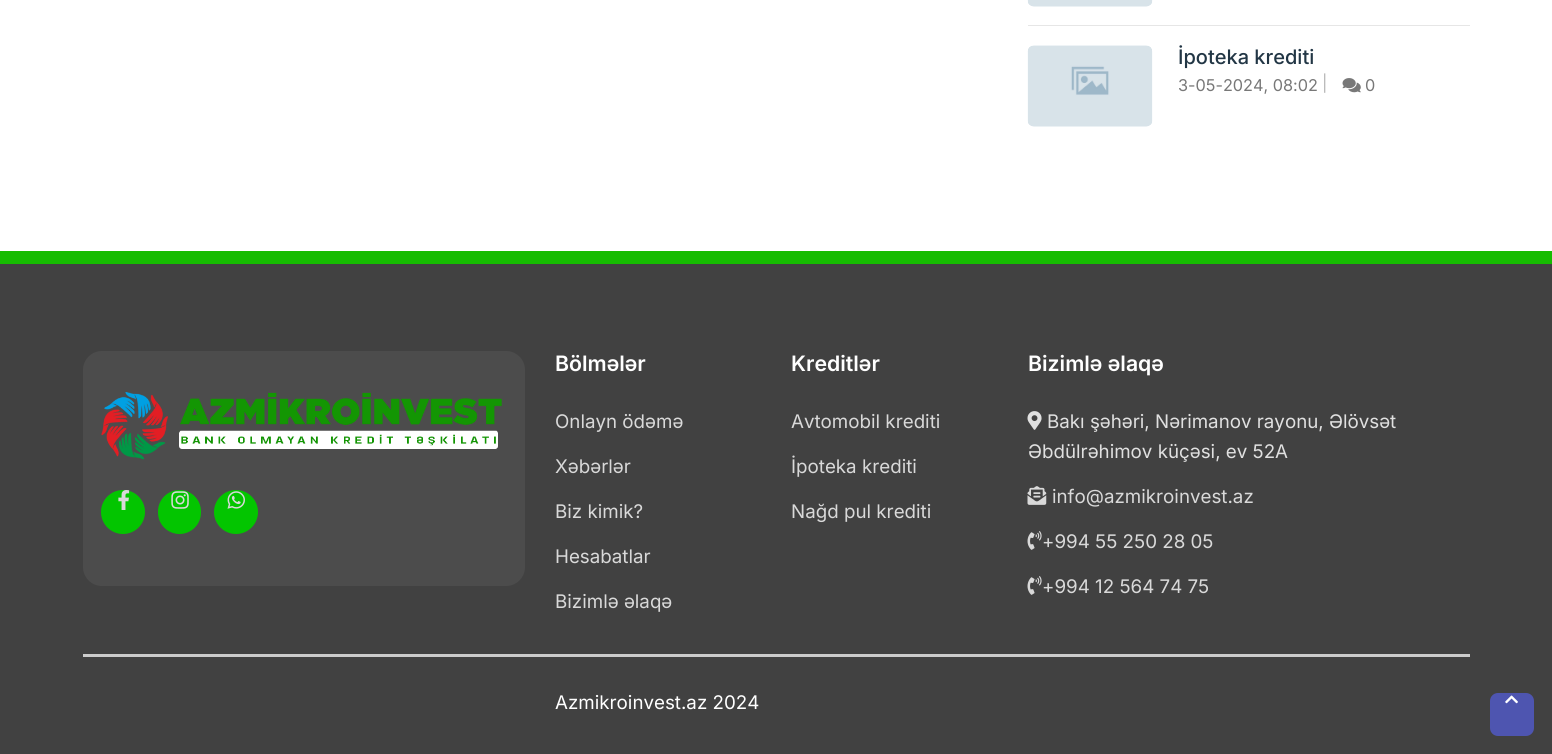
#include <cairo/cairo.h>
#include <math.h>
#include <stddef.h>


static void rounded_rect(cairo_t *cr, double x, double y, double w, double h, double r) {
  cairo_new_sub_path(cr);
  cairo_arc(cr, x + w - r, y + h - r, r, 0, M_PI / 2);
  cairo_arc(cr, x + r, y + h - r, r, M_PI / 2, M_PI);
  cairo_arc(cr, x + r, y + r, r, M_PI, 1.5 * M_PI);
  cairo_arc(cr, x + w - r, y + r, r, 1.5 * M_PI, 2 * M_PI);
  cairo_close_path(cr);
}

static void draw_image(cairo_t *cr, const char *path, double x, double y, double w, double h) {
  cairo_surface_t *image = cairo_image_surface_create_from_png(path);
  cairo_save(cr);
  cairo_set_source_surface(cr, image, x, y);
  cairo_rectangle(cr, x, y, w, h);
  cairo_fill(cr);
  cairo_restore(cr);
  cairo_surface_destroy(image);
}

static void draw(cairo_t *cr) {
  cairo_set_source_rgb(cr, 1, 1, 1);
  cairo_paint(cr);
  cairo_set_source_rgb(cr, 230 / 255.0, 230 / 255.0, 230 / 255.0);
  cairo_rectangle(cr, 1028, 25, 442, 1);
  cairo_fill(cr);
  draw_image(cr, "images/1.png", 1027, 0, 126, 7);
  draw_image(cr, "images/2.png", 1027, 45, 126, 82);
  draw_image(cr, "images/3.png", 1342, 78, 19, 15);
  cairo_set_source_rgb(cr, 65 / 255.0, 65 / 255.0, 65 / 255.0);
  cairo_rectangle(cr, 0, 264, 1552, 490);
  cairo_fill(cr);
  cairo_set_source_rgb(cr, 22 / 255.0, 188 / 255.0, 1 / 255.0);
  cairo_rectangle(cr, 0, 251, 1552, 13);
  cairo_fill(cr);
  cairo_set_source_rgb(cr, 76 / 255.0, 76 / 255.0, 76 / 255.0);
  rounded_rect(cr, 83, 351, 442, 235, 19);
  cairo_fill(cr);
  draw_image(cr, "images/4.png", 101, 392, 401, 68);
  cairo_set_source_rgb(cr, 3 / 255.0, 197 / 255.0, 0);
  cairo_arc(cr, 123, 512, 22, 0, 2 * M_PI);
  cairo_fill(cr);
  draw_image(cr, "images/5.png", 118, 490, 12, 20);
  rounded_rect(cr, 158, 490, 43, 44, 21.5);
  cairo_fill(cr);
  draw_image(cr, "images/6.png", 171, 491, 18, 18);
  cairo_arc(cr, 236, 512, 22, 0, 2 * M_PI);
  cairo_fill(cr);
  draw_image(cr, "images/7.png", 227, 491, 18, 18);
  draw_image(cr, "images/8.png", 1027, 411, 15, 19);
  draw_image(cr, "images/9.png", 1027, 486, 20, 19);
  draw_image(cr, "images/10.png", 1027, 531, 15, 19);
  draw_image(cr, "images/10.png", 1027, 576, 15, 19);
  cairo_set_source_rgb(cr, 204 / 255.0, 204 / 255.0, 204 / 255.0);
  cairo_rectangle(cr, 83, 654, 1387, 3);
  cairo_fill(cr);
  cairo_set_source_rgb(cr, 78 / 255.0, 85 / 255.0, 176 / 255.0);
  rounded_rect(cr, 1490, 693, 44, 43, 8);
  cairo_fill(cr);
  draw_image(cr, "images/11.png", 1505, 695, 13, 9);
  cairo_select_font_face(cr, "Inter Medium", CAIRO_FONT_SLANT_NORMAL, CAIRO_FONT_WEIGHT_NORMAL);
  cairo_set_font_size(cr, 20);
  cairo_set_source_rgb(cr, 34 / 255.0, 54 / 255.0, 69 / 255.0);
  cairo_move_to(cr, 1178, 64);
  cairo_show_text(cr, "İpoteka krediti");
  cairo_select_font_face(cr, "Inter", CAIRO_FONT_SLANT_NORMAL, CAIRO_FONT_WEIGHT_NORMAL);
  cairo_set_font_size(cr, 16.25);
  cairo_set_source_rgb(cr, 120 / 255.0, 120 / 255.0, 120 / 255.0);
  cairo_move_to(cr, 1178, 91);
  cairo_show_text(cr, "3-05-2024, 08:02");
  cairo_set_source_rgb(cr, 182 / 255.0, 182 / 255.0, 182 / 255.0);
  cairo_move_to(cr, 1322, 89);
  cairo_show_text(cr, "|");
  cairo_set_source_rgb(cr, 120 / 255.0, 120 / 255.0, 120 / 255.0);
  cairo_move_to(cr, 1365, 91);
  cairo_show_text(cr, "0");
  cairo_select_font_face(cr, "Inter SemiBold", CAIRO_FONT_SLANT_NORMAL, CAIRO_FONT_WEIGHT_NORMAL);
  cairo_set_font_size(cr, 21.25);
  cairo_set_source_rgb(cr, 1, 1, 1);
  cairo_move_to(cr, 555, 371);
  cairo_show_text(cr, "Bölmələr");
  cairo_select_font_face(cr, "Inter", CAIRO_FONT_SLANT_NORMAL, CAIRO_FONT_WEIGHT_NORMAL);
  cairo_set_font_size(cr, 18.75);
  cairo_set_source_rgb(cr, 217 / 255.0, 217 / 255.0, 217 / 255.0);
  cairo_move_to(cr, 555, 428);
  cairo_show_text(cr, "Onlayn ödəmə");
  cairo_move_to(cr, 555, 473);
  cairo_show_text(cr, "Xəbərlər");
  cairo_move_to(cr, 555, 518);
  cairo_show_text(cr, "Biz kimik?");
  cairo_move_to(cr, 555, 563);
  cairo_show_text(cr, "Hesabatlar");
  cairo_move_to(cr, 555, 608);
  cairo_show_text(cr, "Bizimlə əlaqə");
  cairo_select_font_face(cr, "Inter SemiBold", CAIRO_FONT_SLANT_NORMAL, CAIRO_FONT_WEIGHT_NORMAL);
  cairo_set_font_size(cr, 21.25);
  cairo_set_source_rgb(cr, 1, 1, 1);
  cairo_move_to(cr, 791, 371);
  cairo_show_text(cr, "Kreditlər");
  cairo_select_font_face(cr, "Inter", CAIRO_FONT_SLANT_NORMAL, CAIRO_FONT_WEIGHT_NORMAL);
  cairo_set_font_size(cr, 18.75);
  cairo_set_source_rgb(cr, 217 / 255.0, 217 / 255.0, 217 / 255.0);
  cairo_move_to(cr, 791, 428);
  cairo_show_text(cr, "Avtomobil krediti");
  cairo_move_to(cr, 791, 473);
  cairo_show_text(cr, "İpoteka krediti");
  cairo_move_to(cr, 791, 518);
  cairo_show_text(cr, "Nağd pul krediti");
  cairo_select_font_face(cr, "Inter SemiBold", CAIRO_FONT_SLANT_NORMAL, CAIRO_FONT_WEIGHT_NORMAL);
  cairo_set_font_size(cr, 21.25);
  cairo_set_source_rgb(cr, 1, 1, 1);
  cairo_move_to(cr, 1028, 371);
  cairo_show_text(cr, "Bizimlə əlaqə");
  cairo_select_font_face(cr, "Inter", CAIRO_FONT_SLANT_NORMAL, CAIRO_FONT_WEIGHT_NORMAL);
  cairo_set_font_size(cr, 18.75);
  cairo_set_source_rgb(cr, 224 / 255.0, 224 / 255.0, 224 / 255.0);
  cairo_move_to(cr, 1047, 428);
  cairo_show_text(cr, "Bakı şəhəri, Nərimanov rayonu, Əlövsət");
  cairo_move_to(cr, 1028, 458);
  cairo_show_text(cr, "Əbdülrəhimov küçəsi, ev 52A");
  cairo_set_source_rgb(cr, 217 / 255.0, 217 / 255.0, 217 / 255.0);
  cairo_move_to(cr, 1052, 503);
  cairo_show_text(cr, "info@azmikroinvest.az");
  cairo_move_to(cr, 1042, 548);
  cairo_show_text(cr, "+994 55 250 28 05");
  cairo_move_to(cr, 1042, 593);
  cairo_show_text(cr, "+994 12 564 74 75");
  cairo_set_source_rgb(cr, 1, 1, 1);
  cairo_move_to(cr, 555, 709);
  cairo_show_text(cr, "Azmikroinvest.az 2024");
}

int main(void) {
  cairo_surface_t *surface = cairo_image_surface_create(CAIRO_FORMAT_RGB24, 1552, 754);
  cairo_t *cr = cairo_create(surface);
  cairo_font_options_t *options = cairo_font_options_create();
  cairo_font_options_set_hint_metrics(options, CAIRO_HINT_METRICS_OFF);
  cairo_font_options_set_hint_style(options, CAIRO_HINT_STYLE_NONE);
  cairo_set_font_options(cr, options);
  cairo_set_miter_limit(cr, 4);
  draw(cr);
  cairo_surface_write_to_png(surface, "out.png");
  cairo_font_options_destroy(options);
  cairo_destroy(cr);
  cairo_surface_destroy(surface);
  return 0;
}
